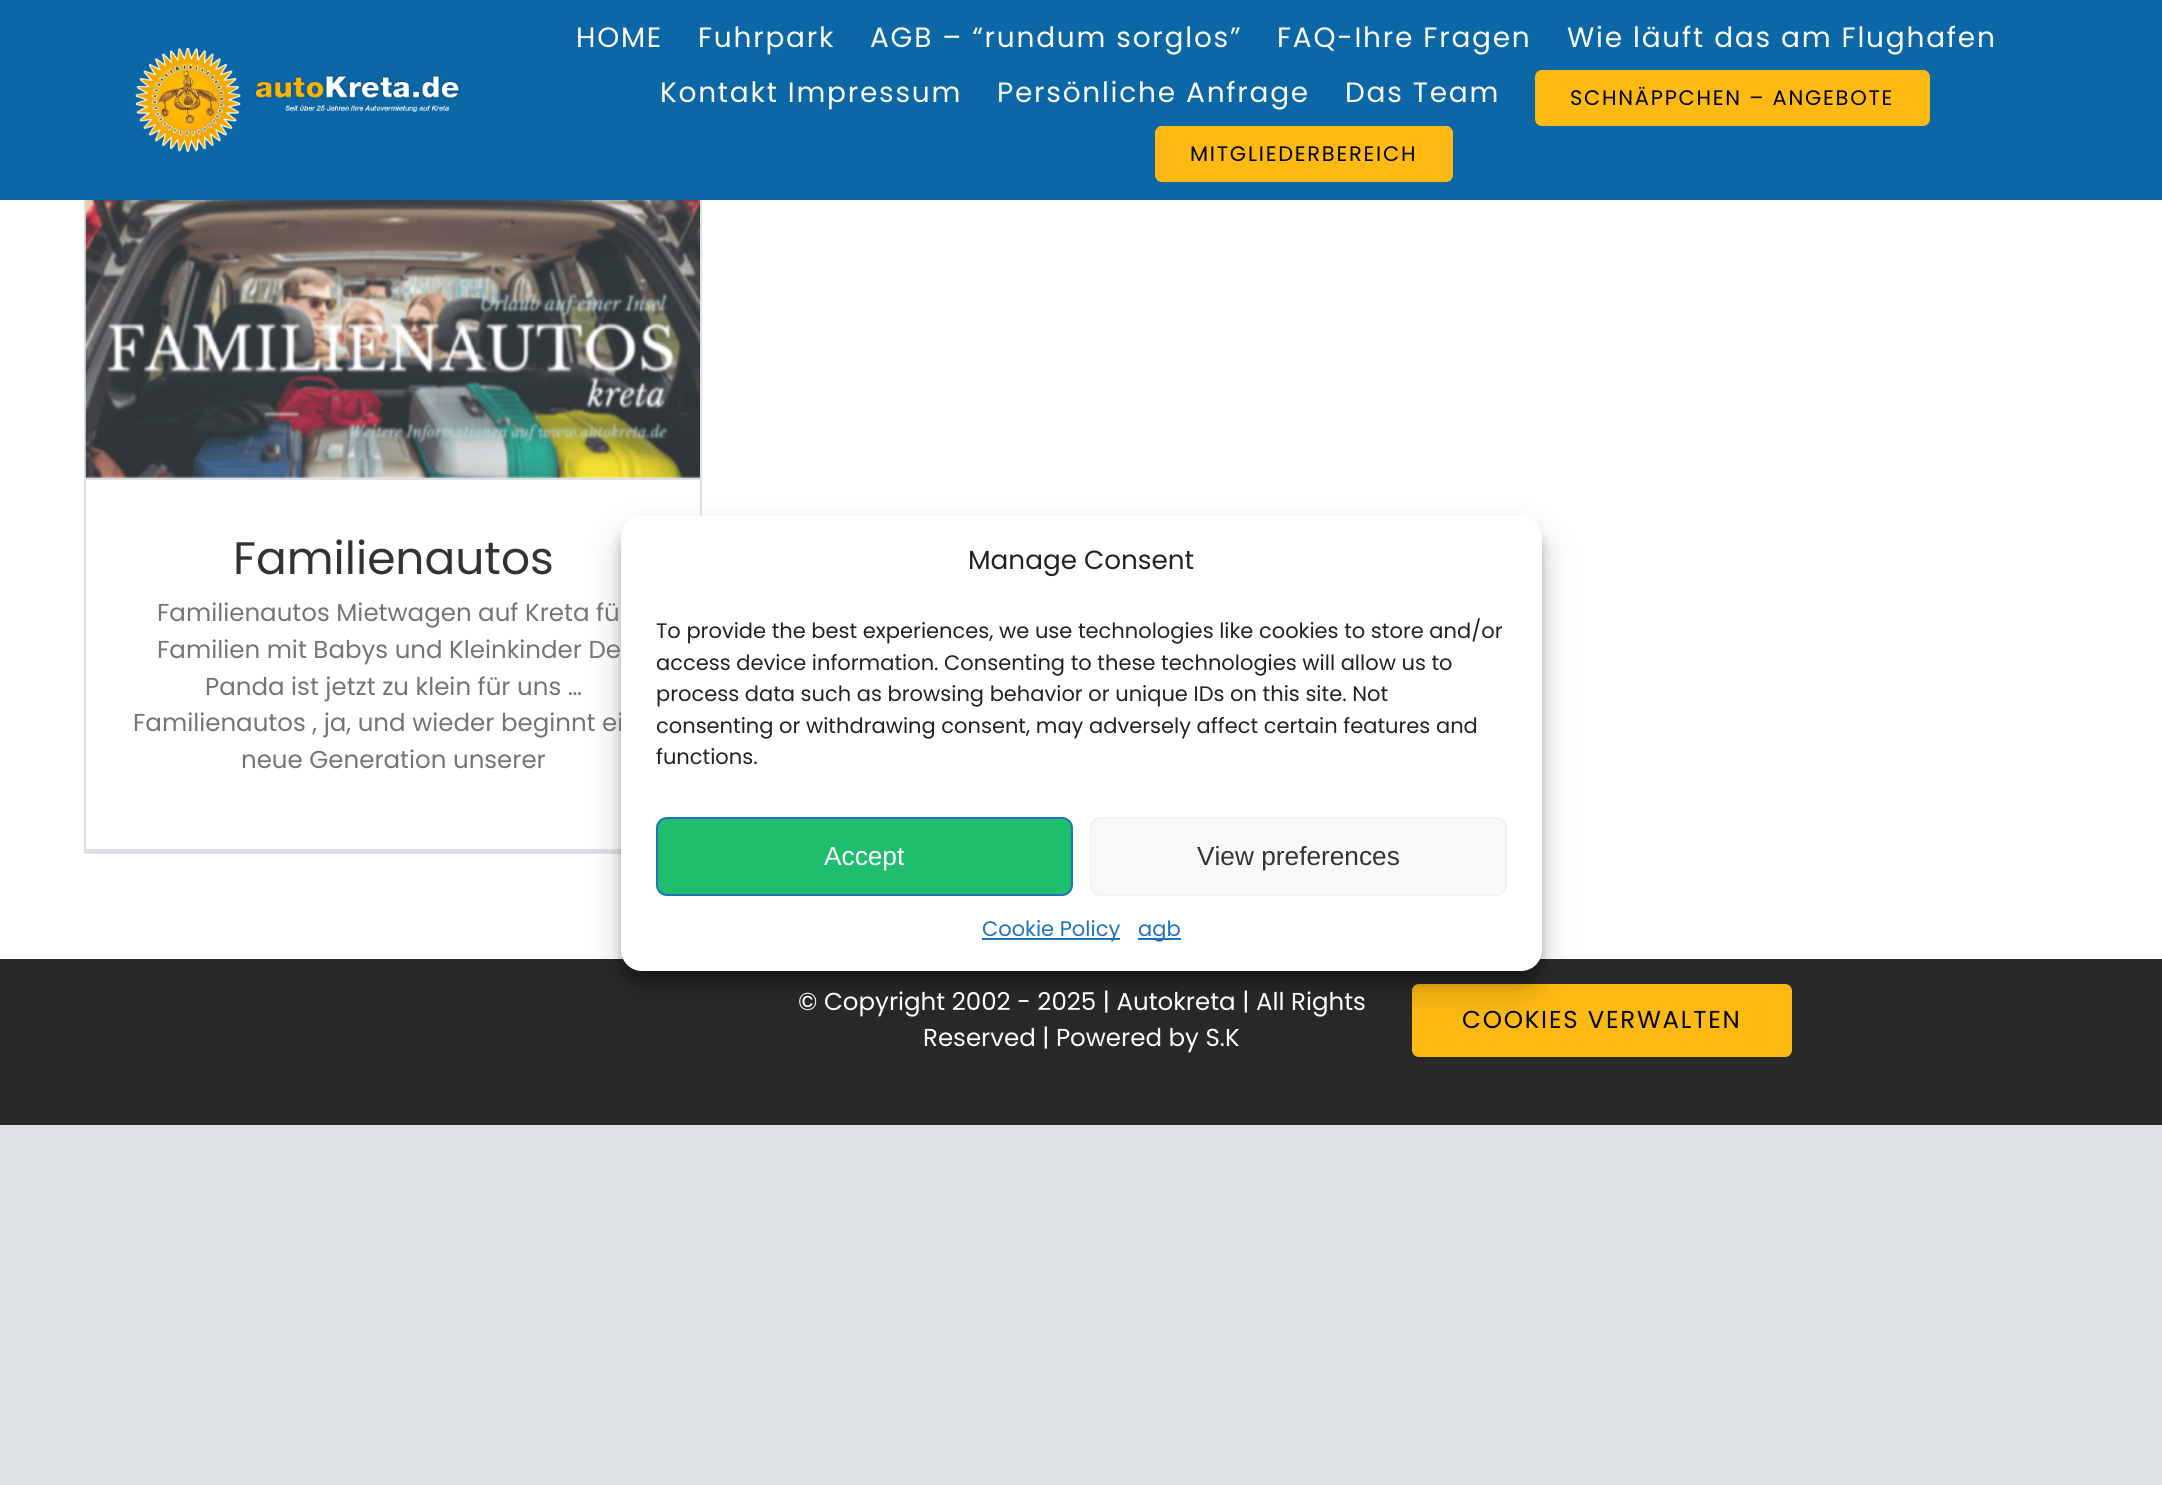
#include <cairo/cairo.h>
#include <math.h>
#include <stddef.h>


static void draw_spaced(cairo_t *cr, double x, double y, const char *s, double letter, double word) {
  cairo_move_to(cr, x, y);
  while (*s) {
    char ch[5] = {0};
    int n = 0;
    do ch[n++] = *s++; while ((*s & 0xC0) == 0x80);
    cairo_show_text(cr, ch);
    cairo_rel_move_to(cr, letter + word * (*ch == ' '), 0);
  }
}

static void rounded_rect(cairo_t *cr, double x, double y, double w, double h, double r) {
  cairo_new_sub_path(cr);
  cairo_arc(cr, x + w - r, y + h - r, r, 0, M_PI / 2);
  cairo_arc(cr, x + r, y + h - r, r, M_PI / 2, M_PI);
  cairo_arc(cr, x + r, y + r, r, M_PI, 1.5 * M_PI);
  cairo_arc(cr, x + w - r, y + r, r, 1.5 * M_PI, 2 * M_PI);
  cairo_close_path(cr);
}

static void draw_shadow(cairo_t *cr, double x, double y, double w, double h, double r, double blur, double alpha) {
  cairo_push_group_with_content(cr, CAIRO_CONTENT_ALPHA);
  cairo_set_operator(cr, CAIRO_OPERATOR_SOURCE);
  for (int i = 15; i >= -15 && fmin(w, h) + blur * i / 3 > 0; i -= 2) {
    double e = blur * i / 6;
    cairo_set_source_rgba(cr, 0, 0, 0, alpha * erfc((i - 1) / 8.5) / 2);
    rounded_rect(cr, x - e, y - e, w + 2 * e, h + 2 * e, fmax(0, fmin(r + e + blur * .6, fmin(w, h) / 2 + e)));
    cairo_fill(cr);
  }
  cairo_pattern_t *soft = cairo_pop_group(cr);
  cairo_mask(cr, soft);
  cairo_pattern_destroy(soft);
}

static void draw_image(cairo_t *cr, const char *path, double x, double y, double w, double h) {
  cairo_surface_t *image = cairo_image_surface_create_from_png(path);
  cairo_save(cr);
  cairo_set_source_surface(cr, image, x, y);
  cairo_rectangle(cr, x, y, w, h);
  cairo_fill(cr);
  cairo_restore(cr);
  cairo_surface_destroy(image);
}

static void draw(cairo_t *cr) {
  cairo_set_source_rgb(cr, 222 / 255.0, 225 / 255.0, 228 / 255.0);
  cairo_paint(cr);
  cairo_set_source_rgb(cr, 1, 1, 1);
  cairo_rectangle(cr, 0, 200, 2162, 759);
  cairo_fill(cr);
  cairo_set_source_rgb(cr, 11 / 255.0, 103 / 255.0, 166 / 255.0);
  cairo_rectangle(cr, 0, 0, 2162, 200);
  cairo_fill(cr);
  draw_image(cr, "images/1.png", 135, 47, 325, 105);
  cairo_set_source_rgb(cr, 254 / 255.0, 186 / 255.0, 18 / 255.0);
  rounded_rect(cr, 1535, 70, 395, 56, 7);
  cairo_fill(cr);
  rounded_rect(cr, 1155, 126, 298, 56, 7);
  cairo_fill(cr);
  cairo_set_source_rgb(cr, 222 / 255.0, 225 / 255.0, 228 / 255.0);
  cairo_rectangle(cr, 700, 200, 2, 316);
  cairo_fill(cr);
  cairo_rectangle(cr, 84, 849, 537, 5);
  cairo_fill(cr);
  cairo_rectangle(cr, 84, 200, 2, 654);
  cairo_fill(cr);
  cairo_rectangle(cr, 86, 478, 614, 2);
  cairo_fill(cr);
  draw_image(cr, "images/2.png", 85, 200, 615, 278);
  cairo_set_source_rgb(cr, 41 / 255.0, 41 / 255.0, 41 / 255.0);
  cairo_rectangle(cr, 0, 959, 2162, 166);
  cairo_fill(cr);
  cairo_set_source_rgb(cr, 254 / 255.0, 186 / 255.0, 18 / 255.0);
  rounded_rect(cr, 1412, 984, 380, 73, 7);
  cairo_fill(cr);
  cairo_set_source_rgb(cr, 0, 0, 0);
  draw_shadow(cr, 621, 527, 921, 455, 21, 5, 0.23);
  draw_shadow(cr, 621, 534, 921, 455, 21, 17.5, 0.19);
  cairo_select_font_face(cr, "Poppins", CAIRO_FONT_SLANT_NORMAL, CAIRO_FONT_WEIGHT_NORMAL);
  cairo_set_font_size(cr, 28);
  cairo_set_source_rgb(cr, 1, 1, 1);
  draw_spaced(cr, 576, 47, "HOME", 1.75, 0);
  draw_spaced(cr, 698, 47, "Fuhrpark", 1.75, 0);
  draw_spaced(cr, 870, 47, "AGB – “rundum sorglos”", 1.75, 0);
  draw_spaced(cr, 1277, 47, "FAQ-Ihre Fragen", 1.75, 0);
  draw_spaced(cr, 1567, 47, "Wie läuft das am Flughafen", 1.75, 0);
  draw_spaced(cr, 660, 102, "Kontakt Impressum", 1.75, 0);
  draw_spaced(cr, 997, 102, "Persönliche Anfrage", 1.75, 0);
  draw_spaced(cr, 1345, 102, "Das Team", 1.75, 0);
  cairo_set_font_size(cr, 21);
  cairo_set_source_rgb(cr, 0, 0, 0);
  draw_spaced(cr, 1570, 105, "SCHNÄPPCHEN – ANGEBOTE", 1.75, 0);
  draw_spaced(cr, 1190, 161, "MITGLIEDERBEREICH", 1.75, 0);
  cairo_set_font_size(cr, 45.5);
  cairo_set_source_rgb(cr, 51 / 255.0, 51 / 255.0, 51 / 255.0);
  cairo_move_to(cr, 233, 574);
  cairo_show_text(cr, "Familienautos");
  cairo_set_font_size(cr, 24.5);
  cairo_set_source_rgb(cr, 116 / 255.0, 116 / 255.0, 116 / 255.0);
  cairo_move_to(cr, 157, 621);
  cairo_show_text(cr, "Familienautos Mietwagen auf Kreta fü");
  cairo_move_to(cr, 157, 658);
  cairo_show_text(cr, "Familien mit Babys und Kleinkinder De");
  cairo_move_to(cr, 205, 695);
  cairo_show_text(cr, "Panda ist jetzt zu klein für uns …");
  cairo_move_to(cr, 133, 731);
  cairo_show_text(cr, "Familienautos , ja, und wieder beginnt ei");
  cairo_move_to(cr, 241, 768);
  cairo_show_text(cr, "neue Generation unserer");
  cairo_set_source_rgb(cr, 1, 1, 1);
  cairo_move_to(cr, 798, 1010);
  cairo_show_text(cr, "© Copyright 2002 - 2025 | Autokreta | All Rights");
  cairo_move_to(cr, 923, 1046);
  cairo_show_text(cr, "Reserved | Powered by S.K");
  cairo_set_source_rgb(cr, 0, 0, 0);
  draw_spaced(cr, 1462, 1028, "COOKIES VERWALTEN", 1.75, 0);
  cairo_set_source_rgb(cr, 1, 1, 1);
  rounded_rect(cr, 621, 516, 921, 455, 21);
  cairo_fill(cr);
  cairo_set_font_size(cr, 26.25);
  cairo_set_source_rgb(cr, 34 / 255.0, 34 / 255.0, 34 / 255.0);
  cairo_move_to(cr, 968, 569);
  cairo_show_text(cr, "Manage Consent");
  cairo_set_font_size(cr, 21);
  cairo_move_to(cr, 656, 638);
  cairo_show_text(cr, "To provide the best experiences, we use technologies like cookies to store and/or");
  cairo_move_to(cr, 656, 670);
  cairo_show_text(cr, "access device information. Consenting to these technologies will allow us to");
  cairo_move_to(cr, 656, 701);
  cairo_show_text(cr, "process data such as browsing behavior or unique IDs on this site. Not");
  cairo_move_to(cr, 656, 733);
  cairo_show_text(cr, "consenting or withdrawing consent, may adversely affect certain features and");
  cairo_move_to(cr, 656, 764);
  cairo_show_text(cr, "functions.");
  cairo_set_source_rgb(cr, 30 / 255.0, 190 / 255.0, 109 / 255.0);
  rounded_rect(cr, 657, 818, 415, 77, 10);
  cairo_fill_preserve(cr);
  cairo_set_source_rgb(cr, 30 / 255.0, 115 / 255.0, 190 / 255.0);
  cairo_stroke(cr);
  cairo_select_font_face(cr, "Liberation Sans", CAIRO_FONT_SLANT_NORMAL, CAIRO_FONT_WEIGHT_NORMAL);
  cairo_set_font_size(cr, 26.25);
  cairo_set_source_rgb(cr, 1, 1, 1);
  cairo_move_to(cr, 824, 865);
  cairo_show_text(cr, "Accept");
  cairo_set_source_rgb(cr, 249 / 255.0, 249 / 255.0, 249 / 255.0);
  rounded_rect(cr, 1091, 818, 415, 77, 10);
  cairo_fill_preserve(cr);
  cairo_set_source_rgb(cr, 242 / 255.0, 242 / 255.0, 242 / 255.0);
  cairo_stroke(cr);
  cairo_set_source_rgb(cr, 51 / 255.0, 51 / 255.0, 51 / 255.0);
  cairo_move_to(cr, 1197, 865);
  cairo_show_text(cr, "View preferences");
  cairo_set_source_rgb(cr, 30 / 255.0, 115 / 255.0, 190 / 255.0);
  cairo_rectangle(cr, 982, 938, 138, 2);
  cairo_fill(cr);
  cairo_select_font_face(cr, "Poppins", CAIRO_FONT_SLANT_NORMAL, CAIRO_FONT_WEIGHT_NORMAL);
  cairo_set_font_size(cr, 21);
  cairo_move_to(cr, 982, 936);
  cairo_show_text(cr, "Cookie Policy");
  cairo_rectangle(cr, 1138, 938, 43, 2);
  cairo_fill(cr);
  cairo_move_to(cr, 1138, 936);
  cairo_show_text(cr, "agb");
}

int main(void) {
  cairo_surface_t *surface = cairo_image_surface_create(CAIRO_FORMAT_RGB24, 2162, 1485);
  cairo_t *cr = cairo_create(surface);
  cairo_font_options_t *options = cairo_font_options_create();
  cairo_font_options_set_hint_metrics(options, CAIRO_HINT_METRICS_OFF);
  cairo_font_options_set_hint_style(options, CAIRO_HINT_STYLE_NONE);
  cairo_set_font_options(cr, options);
  cairo_set_miter_limit(cr, 4);
  draw(cr);
  cairo_surface_write_to_png(surface, "out.png");
  cairo_font_options_destroy(options);
  cairo_destroy(cr);
  cairo_surface_destroy(surface);
  return 0;
}
